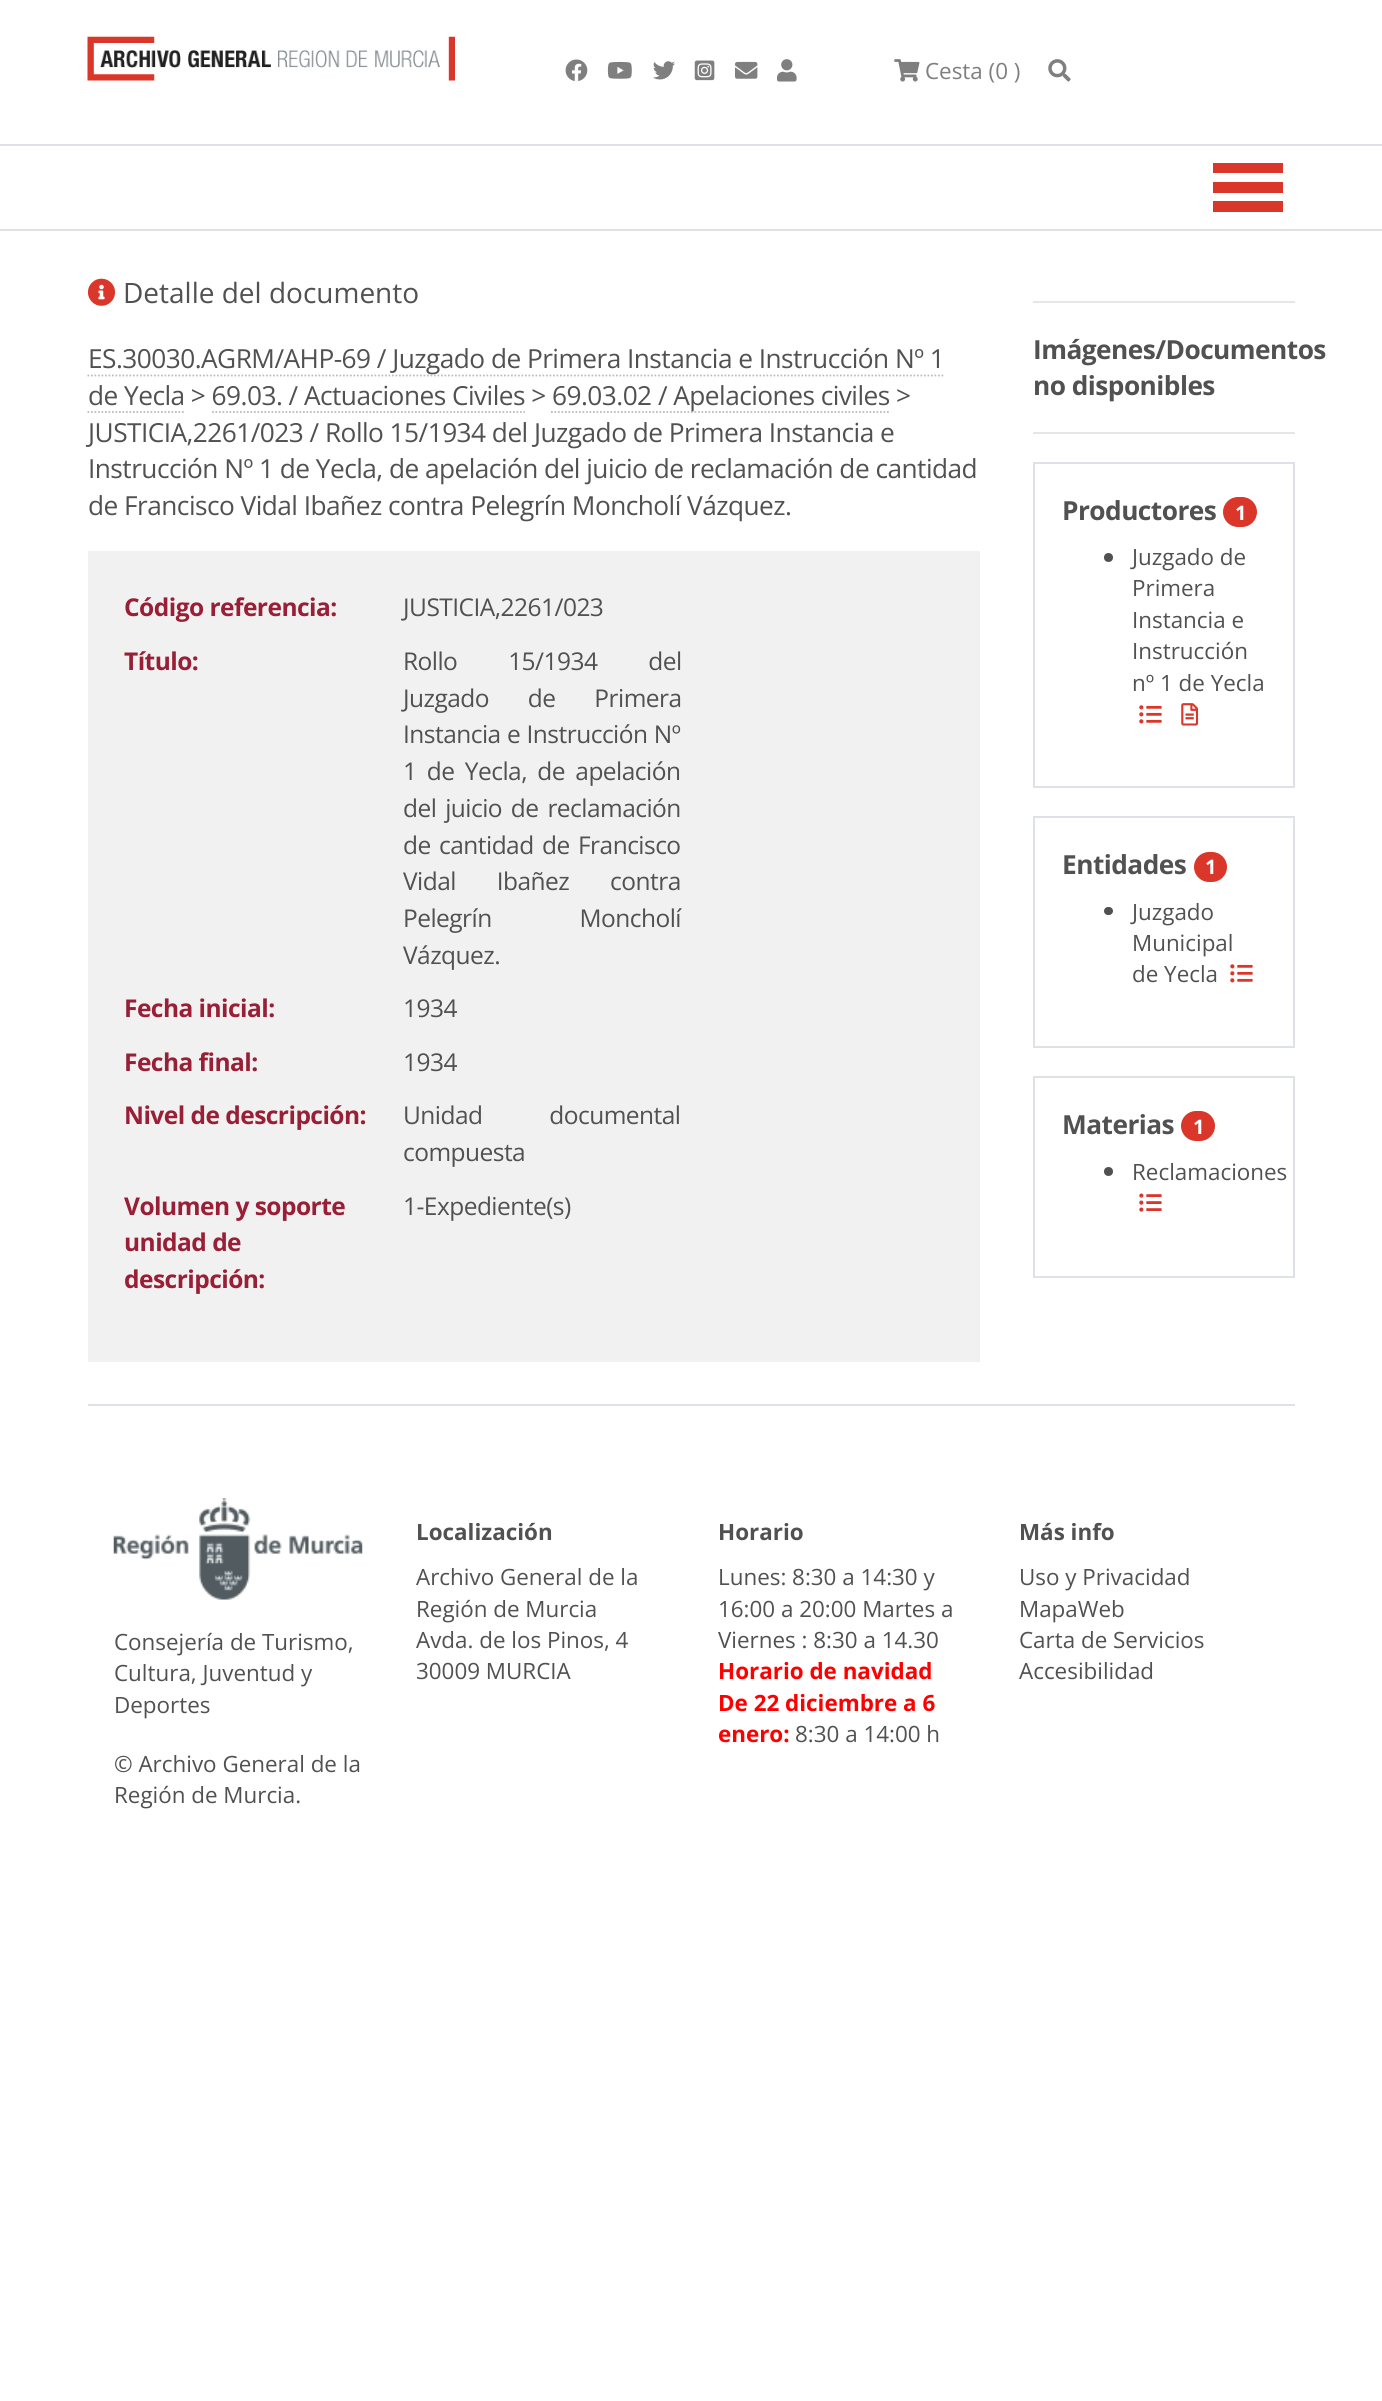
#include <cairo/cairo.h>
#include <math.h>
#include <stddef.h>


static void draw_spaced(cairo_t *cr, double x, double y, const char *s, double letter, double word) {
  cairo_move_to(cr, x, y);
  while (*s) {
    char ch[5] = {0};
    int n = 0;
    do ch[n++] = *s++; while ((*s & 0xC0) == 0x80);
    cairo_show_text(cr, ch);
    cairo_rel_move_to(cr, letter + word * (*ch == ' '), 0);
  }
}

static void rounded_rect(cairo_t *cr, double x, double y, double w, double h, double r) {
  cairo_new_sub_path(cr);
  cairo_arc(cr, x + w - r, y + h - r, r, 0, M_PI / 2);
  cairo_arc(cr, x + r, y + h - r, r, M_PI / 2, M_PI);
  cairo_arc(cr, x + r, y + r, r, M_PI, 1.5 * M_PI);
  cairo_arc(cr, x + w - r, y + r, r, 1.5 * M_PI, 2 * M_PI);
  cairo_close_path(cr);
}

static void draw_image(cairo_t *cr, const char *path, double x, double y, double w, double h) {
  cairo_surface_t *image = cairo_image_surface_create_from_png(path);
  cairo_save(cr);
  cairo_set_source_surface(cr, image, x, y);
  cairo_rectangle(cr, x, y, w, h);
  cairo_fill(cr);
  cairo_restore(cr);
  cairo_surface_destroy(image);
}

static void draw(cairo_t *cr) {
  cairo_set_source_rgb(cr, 1, 1, 1);
  cairo_paint(cr);
  draw_image(cr, "images/1.png", 87, 36, 368, 45);
  draw_image(cr, "images/2.png", 565, 59, 23, 22);
  draw_image(cr, "images/3.png", 607, 61, 25, 18);
  draw_image(cr, "images/4.png", 653, 61, 22, 19);
  draw_image(cr, "images/5.png", 694, 60, 21, 21);
  draw_image(cr, "images/6.png", 735, 61, 23, 18);
  draw_image(cr, "images/7.png", 777, 59, 20, 23);
  draw_image(cr, "images/8.png", 894, 59, 26, 23);
  draw_image(cr, "images/9.png", 1048, 59, 23, 23);
  cairo_set_source_rgb(cr, 222 / 255.0, 226 / 255.0, 230 / 255.0);
  cairo_rectangle(cr, 0, 144, 1382, 2);
  cairo_fill(cr);
  cairo_rectangle(cr, 0, 229, 1382, 2);
  cairo_fill(cr);
  cairo_set_source_rgb(cr, 219 / 255.0, 54 / 255.0, 42 / 255.0);
  cairo_rectangle(cr, 1213, 163, 70, 10);
  cairo_fill(cr);
  cairo_rectangle(cr, 1213, 182, 70, 11);
  cairo_fill(cr);
  cairo_rectangle(cr, 1213, 201, 70, 11);
  cairo_fill(cr);
  draw_image(cr, "images/10.png", 87, 278, 29, 28);
  cairo_new_path(cr);
  cairo_move_to(cr, 87.5, 375.5);
  cairo_line_to(cr, 945, 375.5);
  cairo_set_source_rgb(cr, 189 / 255.0, 189 / 255.0, 189 / 255.0);
  cairo_set_line_width(cr, 1.8);
  cairo_set_dash(cr, (double[]){1.75, 1.75}, 2, 0);
  cairo_stroke(cr);
  cairo_new_path(cr);
  cairo_move_to(cr, 87.5, 412);
  cairo_line_to(cr, 184, 412);
  cairo_stroke(cr);
  cairo_new_path(cr);
  cairo_move_to(cr, 551, 412);
  cairo_line_to(cr, 889, 412);
  cairo_stroke(cr);
  cairo_new_path(cr);
  cairo_move_to(cr, 212, 412);
  cairo_line_to(cr, 525, 412);
  cairo_stroke(cr);
  cairo_set_source_rgb(cr, 241 / 255.0, 241 / 255.0, 241 / 255.0);
  cairo_rectangle(cr, 88, 551, 892, 811);
  cairo_fill(cr);
  cairo_set_source_rgb(cr, 230 / 255.0, 230 / 255.0, 230 / 255.0);
  cairo_rectangle(cr, 1033, 301, 262, 2);
  cairo_fill(cr);
  cairo_rectangle(cr, 1033, 432, 262, 2);
  cairo_fill(cr);
  cairo_rectangle(cr, 1034, 463, 260, 324);
  cairo_set_source_rgb(cr, 222 / 255.0, 226 / 255.0, 230 / 255.0);
  cairo_set_line_width(cr, 2);
  cairo_set_dash(cr, NULL, 0, 0);
  cairo_stroke(cr);
  cairo_set_source_rgb(cr, 219 / 255.0, 54 / 255.0, 42 / 255.0);
  rounded_rect(cr, 1223, 497, 34, 30, 15);
  cairo_fill(cr);
  cairo_set_source_rgb(cr, 81 / 255.0, 81 / 255.0, 81 / 255.0);
  cairo_arc(cr, 1108.5, 557.5, 4.5, 0, 2 * M_PI);
  cairo_fill(cr);
  draw_image(cr, "images/11.png", 1139, 705, 23, 19);
  draw_image(cr, "images/12.png", 1181, 703, 18, 23);
  cairo_rectangle(cr, 1034, 817, 260, 230);
  cairo_set_source_rgb(cr, 222 / 255.0, 226 / 255.0, 230 / 255.0);
  cairo_stroke(cr);
  cairo_set_source_rgb(cr, 219 / 255.0, 54 / 255.0, 42 / 255.0);
  rounded_rect(cr, 1194, 852, 33, 30, 15);
  cairo_fill(cr);
  cairo_set_source_rgb(cr, 81 / 255.0, 81 / 255.0, 81 / 255.0);
  rounded_rect(cr, 1104, 907, 9, 8, 4);
  cairo_fill(cr);
  draw_image(cr, "images/11.png", 1230, 964, 23, 19);
  cairo_rectangle(cr, 1034, 1077, 260, 200);
  cairo_set_source_rgb(cr, 222 / 255.0, 226 / 255.0, 230 / 255.0);
  cairo_stroke(cr);
  cairo_set_source_rgb(cr, 219 / 255.0, 54 / 255.0, 42 / 255.0);
  rounded_rect(cr, 1181, 1111, 34, 30, 15);
  cairo_fill(cr);
  cairo_set_source_rgb(cr, 81 / 255.0, 81 / 255.0, 81 / 255.0);
  cairo_arc(cr, 1108.5, 1171.5, 4.5, 0, 2 * M_PI);
  cairo_fill(cr);
  draw_image(cr, "images/13.png", 1139, 1193, 23, 19);
  cairo_set_source_rgb(cr, 222 / 255.0, 226 / 255.0, 230 / 255.0);
  cairo_rectangle(cr, 88, 1404, 1207, 2);
  cairo_fill(cr);
  draw_image(cr, "images/14.png", 113, 1498, 250, 102);
  cairo_select_font_face(cr, "Open Sans", CAIRO_FONT_SLANT_NORMAL, CAIRO_FONT_WEIGHT_NORMAL);
  cairo_set_font_size(cr, 22.4);
  cairo_set_source_rgb(cr, 127 / 255.0, 127 / 255.0, 127 / 255.0);
  cairo_move_to(cr, 925, 79);
  cairo_show_text(cr, "Cesta (0 )");
  cairo_set_font_size(cr, 28);
  cairo_set_source_rgb(cr, 81 / 255.0, 81 / 255.0, 81 / 255.0);
  cairo_move_to(cr, 123, 303);
  cairo_show_text(cr, "Detalle del documento");
  cairo_set_font_size(cr, 26.25);
  draw_spaced(cr, 88, 368, "ES.30030.AGRM/AHP-69 / Juzgado de Primera Instancia e Instrucción Nº 1", -0.53, 0);
  draw_spaced(cr, 88, 405, "de Yecla > 69.03. / Actuaciones Civiles >", -0.53, 0);
  draw_spaced(cr, 552, 405, "69.03.02 / Apelaciones civiles >", -0.53, 0);
  draw_spaced(cr, 88, 442, "JUSTICIA,2261/023 / Rollo 15/1934 del Juzgado de Primera Instancia e", -0.53, 0);
  draw_spaced(cr, 88, 478, "Instrucción Nº 1 de Yecla, de apelación del juicio de reclamación de cantidad", -0.53, 0);
  draw_spaced(cr, 88, 515, "de Francisco Vidal Ibañez contra Pelegrín Moncholí Vázquez.", -0.53, 0);
  cairo_select_font_face(cr, "Open Sans", CAIRO_FONT_SLANT_NORMAL, CAIRO_FONT_WEIGHT_BOLD);
  cairo_set_font_size(cr, 24.5);
  cairo_set_source_rgb(cr, 152 / 255.0, 31 / 255.0, 54 / 255.0);
  draw_spaced(cr, 124, 616, "Código referencia:", -0.53, 0);
  cairo_select_font_face(cr, "Open Sans", CAIRO_FONT_SLANT_NORMAL, CAIRO_FONT_WEIGHT_NORMAL);
  cairo_set_source_rgb(cr, 81 / 255.0, 81 / 255.0, 81 / 255.0);
  draw_spaced(cr, 403, 616, "JUSTICIA,2261/023", -0.53, 0);
  cairo_select_font_face(cr, "Open Sans", CAIRO_FONT_SLANT_NORMAL, CAIRO_FONT_WEIGHT_BOLD);
  cairo_set_source_rgb(cr, 152 / 255.0, 31 / 255.0, 54 / 255.0);
  draw_spaced(cr, 124, 670, "Título:", -0.53, 0);
  cairo_select_font_face(cr, "Open Sans", CAIRO_FONT_SLANT_NORMAL, CAIRO_FONT_WEIGHT_NORMAL);
  cairo_set_source_rgb(cr, 81 / 255.0, 81 / 255.0, 81 / 255.0);
  draw_spaced(cr, 403, 670, "Rollo 15/1934 del", -0.53, 45);
  draw_spaced(cr, 403, 707, "Juzgado de Primera", -0.53, 33);
  draw_spaced(cr, 403, 743, "Instancia e Instrucción Nº", -0.53, 0.5);
  draw_spaced(cr, 403, 780, "1 de Yecla, de apelación", -0.53, 4.5);
  draw_spaced(cr, 403, 817, "del juicio de reclamación", -0.53, 3);
  draw_spaced(cr, 403, 854, "de cantidad de Francisco", -0.53, 2.5);
  draw_spaced(cr, 403, 890, "Vidal Ibañez contra", -0.53, 35);
  draw_spaced(cr, 403, 927, "Pelegrín Moncholí", -0.53, 82);
  draw_spaced(cr, 403, 964, "Vázquez.", -0.53, 0);
  cairo_select_font_face(cr, "Open Sans", CAIRO_FONT_SLANT_NORMAL, CAIRO_FONT_WEIGHT_BOLD);
  cairo_set_source_rgb(cr, 152 / 255.0, 31 / 255.0, 54 / 255.0);
  draw_spaced(cr, 124, 1017, "Fecha inicial:", -0.53, 0);
  cairo_select_font_face(cr, "Open Sans", CAIRO_FONT_SLANT_NORMAL, CAIRO_FONT_WEIGHT_NORMAL);
  cairo_set_source_rgb(cr, 81 / 255.0, 81 / 255.0, 81 / 255.0);
  draw_spaced(cr, 403, 1017, "1934", -0.53, 0);
  cairo_select_font_face(cr, "Open Sans", CAIRO_FONT_SLANT_NORMAL, CAIRO_FONT_WEIGHT_BOLD);
  cairo_set_source_rgb(cr, 152 / 255.0, 31 / 255.0, 54 / 255.0);
  draw_spaced(cr, 124, 1071, "Fecha final:", -0.53, 0);
  cairo_select_font_face(cr, "Open Sans", CAIRO_FONT_SLANT_NORMAL, CAIRO_FONT_WEIGHT_NORMAL);
  cairo_set_source_rgb(cr, 81 / 255.0, 81 / 255.0, 81 / 255.0);
  draw_spaced(cr, 403, 1071, "1934", -0.53, 0);
  cairo_select_font_face(cr, "Open Sans", CAIRO_FONT_SLANT_NORMAL, CAIRO_FONT_WEIGHT_BOLD);
  cairo_set_source_rgb(cr, 152 / 255.0, 31 / 255.0, 54 / 255.0);
  draw_spaced(cr, 124, 1124, "Nivel de descripción:", -0.53, 0);
  cairo_select_font_face(cr, "Open Sans", CAIRO_FONT_SLANT_NORMAL, CAIRO_FONT_WEIGHT_NORMAL);
  cairo_set_source_rgb(cr, 81 / 255.0, 81 / 255.0, 81 / 255.0);
  draw_spaced(cr, 403, 1124, "Unidad documental", -0.53, 61);
  draw_spaced(cr, 403, 1161, "compuesta", -0.53, 0);
  cairo_select_font_face(cr, "Open Sans", CAIRO_FONT_SLANT_NORMAL, CAIRO_FONT_WEIGHT_BOLD);
  cairo_set_source_rgb(cr, 152 / 255.0, 31 / 255.0, 54 / 255.0);
  draw_spaced(cr, 124, 1215, "Volumen y soporte", -0.53, 0);
  draw_spaced(cr, 124, 1251, "unidad de", -0.53, 0);
  draw_spaced(cr, 124, 1288, "descripción:", -0.53, 0);
  cairo_select_font_face(cr, "Open Sans", CAIRO_FONT_SLANT_NORMAL, CAIRO_FONT_WEIGHT_NORMAL);
  cairo_set_source_rgb(cr, 81 / 255.0, 81 / 255.0, 81 / 255.0);
  draw_spaced(cr, 403, 1215, "1-Expediente(s)", -0.53, 0);
  cairo_select_font_face(cr, "Open Sans", CAIRO_FONT_SLANT_NORMAL, CAIRO_FONT_WEIGHT_BOLD);
  cairo_set_font_size(cr, 26.25);
  draw_spaced(cr, 1033, 359, "Imágenes/Documentos", -0.53, 0);
  draw_spaced(cr, 1033, 395, "no disponibles", -0.53, 0);
  draw_spaced(cr, 1062, 520, "Productores", -0.53, 0);
  cairo_set_font_size(cr, 20);
  cairo_set_source_rgb(cr, 1, 1, 1);
  draw_spaced(cr, 1235, 520, "1", -0.53, 0);
  cairo_select_font_face(cr, "Open Sans", CAIRO_FONT_SLANT_NORMAL, CAIRO_FONT_WEIGHT_NORMAL);
  cairo_set_font_size(cr, 22.4);
  cairo_set_source_rgb(cr, 81 / 255.0, 81 / 255.0, 81 / 255.0);
  cairo_move_to(cr, 1132, 565);
  cairo_show_text(cr, "Juzgado de");
  cairo_move_to(cr, 1132, 596);
  cairo_show_text(cr, "Primera");
  cairo_move_to(cr, 1132, 628);
  cairo_show_text(cr, "Instancia e");
  cairo_move_to(cr, 1132, 659);
  cairo_show_text(cr, "Instrucción");
  cairo_move_to(cr, 1132, 691);
  cairo_show_text(cr, "nº 1 de Yecla");
  cairo_select_font_face(cr, "Open Sans", CAIRO_FONT_SLANT_NORMAL, CAIRO_FONT_WEIGHT_BOLD);
  cairo_set_font_size(cr, 26.25);
  draw_spaced(cr, 1062, 874, "Entidades", -0.53, 0);
  cairo_set_font_size(cr, 20);
  cairo_set_source_rgb(cr, 1, 1, 1);
  draw_spaced(cr, 1205, 874, "1", -0.53, 0);
  cairo_select_font_face(cr, "Open Sans", CAIRO_FONT_SLANT_NORMAL, CAIRO_FONT_WEIGHT_NORMAL);
  cairo_set_font_size(cr, 22.4);
  cairo_set_source_rgb(cr, 81 / 255.0, 81 / 255.0, 81 / 255.0);
  cairo_move_to(cr, 1132, 920);
  cairo_show_text(cr, "Juzgado");
  cairo_move_to(cr, 1132, 951);
  cairo_show_text(cr, "Municipal");
  cairo_move_to(cr, 1132, 982);
  cairo_show_text(cr, "de Yecla");
  cairo_select_font_face(cr, "Open Sans", CAIRO_FONT_SLANT_NORMAL, CAIRO_FONT_WEIGHT_BOLD);
  cairo_set_font_size(cr, 26.25);
  draw_spaced(cr, 1062, 1134, "Materias", -0.53, 0);
  cairo_set_font_size(cr, 20);
  cairo_set_source_rgb(cr, 1, 1, 1);
  draw_spaced(cr, 1193, 1134, "1", -0.53, 0);
  cairo_select_font_face(cr, "Open Sans", CAIRO_FONT_SLANT_NORMAL, CAIRO_FONT_WEIGHT_NORMAL);
  cairo_set_font_size(cr, 22.4);
  cairo_set_source_rgb(cr, 81 / 255.0, 81 / 255.0, 81 / 255.0);
  cairo_move_to(cr, 1132, 1180);
  cairo_show_text(cr, "Reclamaciones");
  cairo_move_to(cr, 114, 1650);
  cairo_show_text(cr, "Consejería de Turismo,");
  cairo_move_to(cr, 114, 1681);
  cairo_show_text(cr, "Cultura, Juventud y");
  cairo_move_to(cr, 114, 1713);
  cairo_show_text(cr, "Deportes");
  cairo_move_to(cr, 114, 1772);
  cairo_show_text(cr, "© Archivo General de la");
  cairo_move_to(cr, 114, 1803);
  cairo_show_text(cr, "Región de Murcia.");
  cairo_select_font_face(cr, "Open Sans", CAIRO_FONT_SLANT_NORMAL, CAIRO_FONT_WEIGHT_BOLD);
  cairo_move_to(cr, 416, 1540);
  cairo_show_text(cr, "Localización");
  cairo_select_font_face(cr, "Open Sans", CAIRO_FONT_SLANT_NORMAL, CAIRO_FONT_WEIGHT_NORMAL);
  cairo_move_to(cr, 416, 1585);
  cairo_show_text(cr, "Archivo General de la");
  cairo_move_to(cr, 416, 1617);
  cairo_show_text(cr, "Región de Murcia");
  cairo_move_to(cr, 416, 1648);
  cairo_show_text(cr, "Avda. de los Pinos, 4");
  cairo_move_to(cr, 416, 1679);
  cairo_show_text(cr, "30009 MURCIA");
  cairo_select_font_face(cr, "Open Sans", CAIRO_FONT_SLANT_NORMAL, CAIRO_FONT_WEIGHT_BOLD);
  cairo_move_to(cr, 718, 1540);
  cairo_show_text(cr, "Horario");
  cairo_select_font_face(cr, "Open Sans", CAIRO_FONT_SLANT_NORMAL, CAIRO_FONT_WEIGHT_NORMAL);
  cairo_move_to(cr, 718, 1585);
  cairo_show_text(cr, "Lunes: 8:30 a 14:30 y");
  cairo_move_to(cr, 718, 1617);
  cairo_show_text(cr, "16:00 a 20:00 Martes a");
  cairo_move_to(cr, 718, 1648);
  cairo_show_text(cr, "Viernes : 8:30 a 14.30");
  cairo_select_font_face(cr, "Open Sans", CAIRO_FONT_SLANT_NORMAL, CAIRO_FONT_WEIGHT_BOLD);
  cairo_set_source_rgb(cr, 1, 0, 0);
  cairo_move_to(cr, 718, 1679);
  cairo_show_text(cr, "Horario de navidad");
  cairo_move_to(cr, 718, 1711);
  cairo_show_text(cr, "De 22 diciembre a 6");
  cairo_move_to(cr, 718, 1742);
  cairo_show_text(cr, "enero:");
  cairo_select_font_face(cr, "Open Sans", CAIRO_FONT_SLANT_NORMAL, CAIRO_FONT_WEIGHT_NORMAL);
  cairo_set_source_rgb(cr, 81 / 255.0, 81 / 255.0, 81 / 255.0);
  cairo_move_to(cr, 795, 1742);
  cairo_show_text(cr, "8:30 a 14:00 h");
  cairo_select_font_face(cr, "Open Sans", CAIRO_FONT_SLANT_NORMAL, CAIRO_FONT_WEIGHT_BOLD);
  cairo_move_to(cr, 1019, 1540);
  cairo_show_text(cr, "Más info");
  cairo_select_font_face(cr, "Open Sans", CAIRO_FONT_SLANT_NORMAL, CAIRO_FONT_WEIGHT_NORMAL);
  cairo_move_to(cr, 1019, 1585);
  cairo_show_text(cr, "Uso y Privacidad");
  cairo_move_to(cr, 1019, 1617);
  cairo_show_text(cr, "MapaWeb");
  cairo_move_to(cr, 1019, 1648);
  cairo_show_text(cr, "Carta de Servicios");
  cairo_move_to(cr, 1019, 1679);
  cairo_show_text(cr, "Accesibilidad");
}

int main(void) {
  cairo_surface_t *surface = cairo_image_surface_create(CAIRO_FORMAT_RGB24, 1382, 2401);
  cairo_t *cr = cairo_create(surface);
  cairo_font_options_t *options = cairo_font_options_create();
  cairo_font_options_set_hint_metrics(options, CAIRO_HINT_METRICS_OFF);
  cairo_font_options_set_hint_style(options, CAIRO_HINT_STYLE_NONE);
  cairo_set_font_options(cr, options);
  cairo_set_miter_limit(cr, 4);
  draw(cr);
  cairo_surface_write_to_png(surface, "out.png");
  cairo_font_options_destroy(options);
  cairo_destroy(cr);
  cairo_surface_destroy(surface);
  return 0;
}
